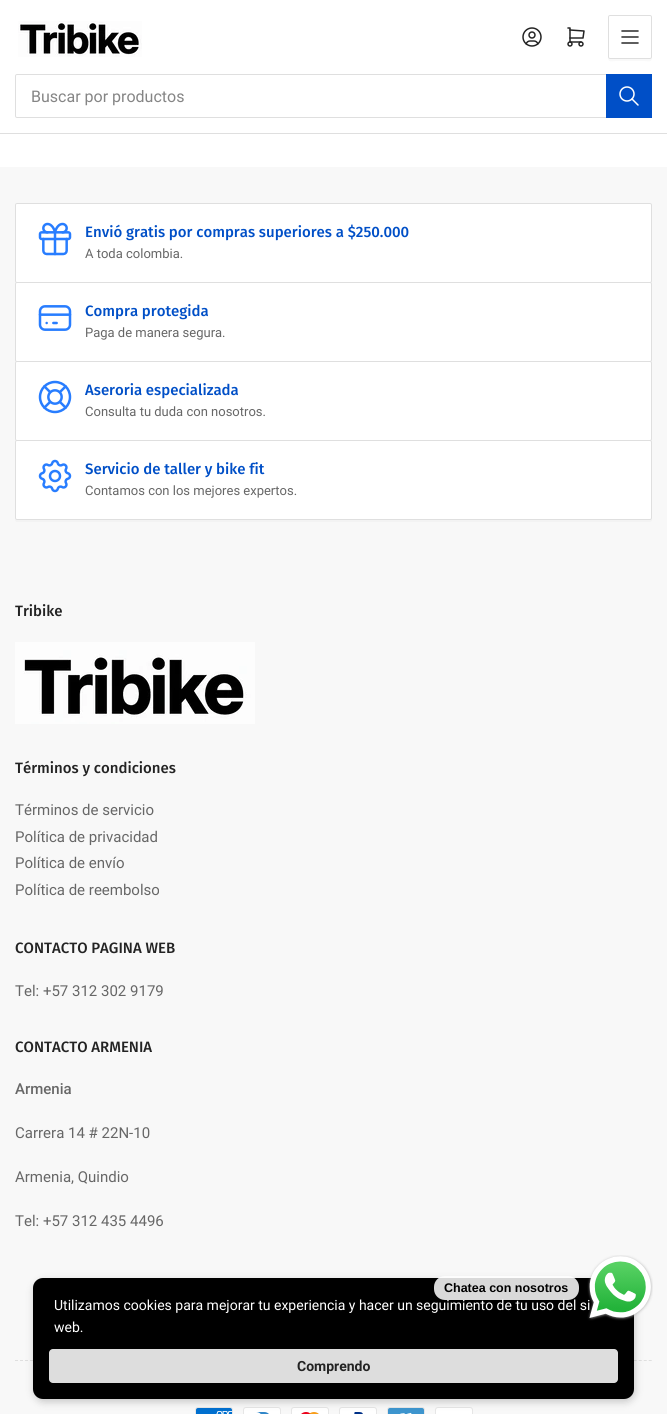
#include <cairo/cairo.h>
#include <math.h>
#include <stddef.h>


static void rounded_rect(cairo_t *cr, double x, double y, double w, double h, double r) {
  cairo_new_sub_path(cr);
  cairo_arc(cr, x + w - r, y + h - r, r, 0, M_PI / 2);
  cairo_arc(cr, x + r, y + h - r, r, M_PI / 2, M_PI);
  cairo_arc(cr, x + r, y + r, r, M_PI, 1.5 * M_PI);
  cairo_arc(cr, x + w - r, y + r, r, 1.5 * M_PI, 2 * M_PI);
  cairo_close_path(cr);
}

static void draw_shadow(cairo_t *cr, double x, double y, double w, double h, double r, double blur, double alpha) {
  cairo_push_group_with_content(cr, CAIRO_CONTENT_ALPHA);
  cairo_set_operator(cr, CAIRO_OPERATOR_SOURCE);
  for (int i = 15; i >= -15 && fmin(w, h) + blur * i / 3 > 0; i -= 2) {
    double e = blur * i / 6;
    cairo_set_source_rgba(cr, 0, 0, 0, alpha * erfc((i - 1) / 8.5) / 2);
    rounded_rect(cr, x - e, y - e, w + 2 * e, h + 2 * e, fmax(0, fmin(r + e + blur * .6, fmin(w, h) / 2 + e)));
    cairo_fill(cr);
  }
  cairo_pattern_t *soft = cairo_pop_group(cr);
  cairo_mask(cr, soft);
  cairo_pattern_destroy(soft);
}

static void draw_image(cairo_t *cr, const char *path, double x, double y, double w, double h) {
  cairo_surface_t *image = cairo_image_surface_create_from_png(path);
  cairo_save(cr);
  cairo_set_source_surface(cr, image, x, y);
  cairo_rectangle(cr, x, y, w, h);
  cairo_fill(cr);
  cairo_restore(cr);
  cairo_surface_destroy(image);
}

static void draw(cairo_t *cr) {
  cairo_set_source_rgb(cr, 1, 1, 1);
  cairo_paint(cr);
  cairo_set_source_rgb(cr, 223 / 255.0, 223 / 255.0, 223 / 255.0);
  cairo_rectangle(cr, 0, 133, 667, 1);
  cairo_fill(cr);
  draw_image(cr, "images/1.png", 18, 21, 124, 36);
  draw_image(cr, "images/2.png", 522, 27, 20, 20);
  draw_image(cr, "images/3.png", 567, 27, 18, 20);
  cairo_set_source_rgb(cr, 249 / 255.0, 249 / 255.0, 249 / 255.0);
  cairo_new_path(cr);
  cairo_move_to(cr, 608, 57);
  cairo_curve_to(cr, 608, 63, 611, 61, 617, 61);
  cairo_line_to(cr, 643, 61);
  cairo_curve_to(cr, 649, 61, 652, 63, 652, 57);
  cairo_curve_to(cr, 652, 58, 651, 59, 650, 59);
  cairo_line_to(cr, 610, 59);
  cairo_curve_to(cr, 609, 59, 608, 58, 608, 57);
  cairo_close_path(cr);
  cairo_fill(cr);
  rounded_rect(cr, 608.5, 15.5, 43, 43, 1.5);
  cairo_set_source_rgb(cr, 223 / 255.0, 223 / 255.0, 223 / 255.0);
  cairo_set_line_width(cr, 1);
  cairo_stroke(cr);
  draw_image(cr, "images/4.png", 621, 30, 18, 14);
  rounded_rect(cr, 15.5, 74.5, 636, 43, 1.5);
  cairo_stroke(cr);
  cairo_rectangle(cr, 606.5, 74.5, 45, 43);
  cairo_set_source_rgb(cr, 0, 79 / 255.0, 199 / 255.0);
  cairo_stroke(cr);
  cairo_rectangle(cr, 607, 75, 44, 42);
  cairo_fill(cr);
  draw_image(cr, "images/5.png", 619, 86, 20, 20);
  cairo_set_source_rgb(cr, 248 / 255.0, 248 / 255.0, 248 / 255.0);
  cairo_rectangle(cr, 0, 167, 667, 1247);
  cairo_fill(cr);
  cairo_set_source_rgb(cr, 1, 1, 1);
  rounded_rect(cr, 15.5, 203.5, 636, 79, 1.5);
  cairo_fill_preserve(cr);
  cairo_set_source_rgb(cr, 223 / 255.0, 223 / 255.0, 223 / 255.0);
  cairo_stroke(cr);
  draw_image(cr, "images/6.png", 38, 222, 34, 34);
  cairo_set_source_rgb(cr, 1, 1, 1);
  rounded_rect(cr, 15.5, 282.5, 636, 79, 1.5);
  cairo_fill_preserve(cr);
  cairo_set_source_rgb(cr, 223 / 255.0, 223 / 255.0, 223 / 255.0);
  cairo_stroke(cr);
  draw_image(cr, "images/7.png", 38, 305, 34, 26);
  cairo_set_source_rgb(cr, 1, 1, 1);
  rounded_rect(cr, 15.5, 361.5, 636, 79, 1.5);
  cairo_fill_preserve(cr);
  cairo_set_source_rgb(cr, 223 / 255.0, 223 / 255.0, 223 / 255.0);
  cairo_stroke(cr);
  draw_image(cr, "images/8.png", 38, 380, 34, 34);
  cairo_set_source_rgb(cr, 243 / 255.0, 243 / 255.0, 243 / 255.0);
  cairo_new_path(cr);
  cairo_move_to(cr, 15, 518);
  cairo_curve_to(cr, 15, 520, 15, 522, 17, 522);
  cairo_line_to(cr, 650, 522);
  cairo_line_to(cr, 652, 521);
  cairo_line_to(cr, 652, 518);
  cairo_curve_to(cr, 652, 519, 651, 520, 650, 520);
  cairo_line_to(cr, 17, 520);
  cairo_curve_to(cr, 16, 520, 15, 519, 15, 518);
  cairo_close_path(cr);
  cairo_fill(cr);
  cairo_set_source_rgb(cr, 1, 1, 1);
  rounded_rect(cr, 15.5, 440.5, 636, 79, 1.5);
  cairo_fill_preserve(cr);
  cairo_set_source_rgb(cr, 223 / 255.0, 223 / 255.0, 223 / 255.0);
  cairo_stroke(cr);
  draw_image(cr, "images/9.png", 38, 459, 34, 34);
  draw_image(cr, "images/10.png", 15, 642, 240, 82);
  cairo_new_path(cr);
  cairo_move_to(cr, 15, 1360.5);
  cairo_line_to(cr, 652, 1360.5);
  cairo_set_dash(cr, (double[]){3, 1.99}, 2, 0);
  cairo_stroke(cr);
  draw_image(cr, "images/11.png", 195, 1407, 38, 7);
  draw_image(cr, "images/12.png", 243, 1407, 38, 7);
  draw_image(cr, "images/13.png", 291, 1407, 38, 7);
  draw_image(cr, "images/14.png", 339, 1407, 38, 7);
  draw_image(cr, "images/15.png", 387, 1407, 38, 7);
  draw_image(cr, "images/16.png", 435, 1407, 38, 7);
  cairo_set_source_rgb(cr, 0, 0, 0);
  draw_shadow(cr, 34, 1281, 601, 121, 10, 4, 0.2);
  cairo_set_source_rgb(cr, 0, 0, 0);
  rounded_rect(cr, 33, 1278, 601, 121, 10);
  cairo_fill(cr);
  cairo_set_source_rgb(cr, 221 / 255.0, 221 / 255.0, 221 / 255.0);
  rounded_rect(cr, 49, 1349, 569, 34, 4);
  cairo_fill(cr);
  cairo_select_font_face(cr, "Roboto", CAIRO_FONT_SLANT_NORMAL, CAIRO_FONT_WEIGHT_NORMAL);
  cairo_set_font_size(cr, 16);
  cairo_set_source_rgb(cr, 133 / 255.0, 133 / 255.0, 133 / 255.0);
  cairo_move_to(cr, 31, 102);
  cairo_show_text(cr, "Buscar por productos");
  cairo_select_font_face(cr, "Fira Sans Medium", CAIRO_FONT_SLANT_NORMAL, CAIRO_FONT_WEIGHT_NORMAL);
  cairo_set_font_size(cr, 15);
  cairo_set_source_rgb(cr, 0, 79 / 255.0, 199 / 255.0);
  cairo_move_to(cr, 85, 237);
  cairo_show_text(cr, "Envió gratis por compras superiores a $250.000");
  cairo_select_font_face(cr, "Roboto", CAIRO_FONT_SLANT_NORMAL, CAIRO_FONT_WEIGHT_NORMAL);
  cairo_set_font_size(cr, 13);
  cairo_set_source_rgb(cr, 103 / 255.0, 103 / 255.0, 103 / 255.0);
  cairo_move_to(cr, 85, 258);
  cairo_show_text(cr, "A toda colombia.");
  cairo_select_font_face(cr, "Fira Sans Medium", CAIRO_FONT_SLANT_NORMAL, CAIRO_FONT_WEIGHT_NORMAL);
  cairo_set_font_size(cr, 15);
  cairo_set_source_rgb(cr, 0, 79 / 255.0, 199 / 255.0);
  cairo_move_to(cr, 85, 316);
  cairo_show_text(cr, "Compra protegida");
  cairo_select_font_face(cr, "Roboto", CAIRO_FONT_SLANT_NORMAL, CAIRO_FONT_WEIGHT_NORMAL);
  cairo_set_font_size(cr, 13);
  cairo_set_source_rgb(cr, 103 / 255.0, 103 / 255.0, 103 / 255.0);
  cairo_move_to(cr, 85, 337);
  cairo_show_text(cr, "Paga de manera segura.");
  cairo_select_font_face(cr, "Fira Sans Medium", CAIRO_FONT_SLANT_NORMAL, CAIRO_FONT_WEIGHT_NORMAL);
  cairo_set_font_size(cr, 15);
  cairo_set_source_rgb(cr, 0, 79 / 255.0, 199 / 255.0);
  cairo_move_to(cr, 85, 395);
  cairo_show_text(cr, "Aseroria especializada");
  cairo_select_font_face(cr, "Roboto", CAIRO_FONT_SLANT_NORMAL, CAIRO_FONT_WEIGHT_NORMAL);
  cairo_set_font_size(cr, 13);
  cairo_set_source_rgb(cr, 103 / 255.0, 103 / 255.0, 103 / 255.0);
  cairo_move_to(cr, 85, 416);
  cairo_show_text(cr, "Consulta tu duda con nosotros.");
  cairo_select_font_face(cr, "Fira Sans Medium", CAIRO_FONT_SLANT_NORMAL, CAIRO_FONT_WEIGHT_NORMAL);
  cairo_set_font_size(cr, 15);
  cairo_set_source_rgb(cr, 0, 79 / 255.0, 199 / 255.0);
  cairo_move_to(cr, 85, 474);
  cairo_show_text(cr, "Servicio de taller y bike fit");
  cairo_select_font_face(cr, "Roboto", CAIRO_FONT_SLANT_NORMAL, CAIRO_FONT_WEIGHT_NORMAL);
  cairo_set_font_size(cr, 13);
  cairo_set_source_rgb(cr, 103 / 255.0, 103 / 255.0, 103 / 255.0);
  cairo_move_to(cr, 85, 495);
  cairo_show_text(cr, "Contamos con los mejores expertos.");
  cairo_select_font_face(cr, "Fira Sans Medium", CAIRO_FONT_SLANT_NORMAL, CAIRO_FONT_WEIGHT_NORMAL);
  cairo_set_font_size(cr, 15);
  cairo_set_source_rgb(cr, 35 / 255.0, 35 / 255.0, 35 / 255.0);
  cairo_move_to(cr, 15, 616);
  cairo_show_text(cr, "Tribike");
  cairo_move_to(cr, 15, 773);
  cairo_show_text(cr, "Términos y condiciones");
  cairo_select_font_face(cr, "Roboto", CAIRO_FONT_SLANT_NORMAL, CAIRO_FONT_WEIGHT_NORMAL);
  cairo_set_source_rgb(cr, 103 / 255.0, 103 / 255.0, 103 / 255.0);
  cairo_move_to(cr, 15, 815);
  cairo_show_text(cr, "Términos de servicio");
  cairo_move_to(cr, 15, 842);
  cairo_show_text(cr, "Política de privacidad");
  cairo_move_to(cr, 15, 868);
  cairo_show_text(cr, "Política de envío");
  cairo_move_to(cr, 15, 895);
  cairo_show_text(cr, "Política de reembolso");
  cairo_select_font_face(cr, "Fira Sans Medium", CAIRO_FONT_SLANT_NORMAL, CAIRO_FONT_WEIGHT_NORMAL);
  cairo_set_source_rgb(cr, 35 / 255.0, 35 / 255.0, 35 / 255.0);
  cairo_move_to(cr, 15, 953);
  cairo_show_text(cr, "CONTACTO PAGINA WEB");
  cairo_select_font_face(cr, "Roboto", CAIRO_FONT_SLANT_NORMAL, CAIRO_FONT_WEIGHT_NORMAL);
  cairo_set_source_rgb(cr, 103 / 255.0, 103 / 255.0, 103 / 255.0);
  cairo_move_to(cr, 15, 996);
  cairo_show_text(cr, "Tel: +57 312 302 9179");
  cairo_select_font_face(cr, "Fira Sans Medium", CAIRO_FONT_SLANT_NORMAL, CAIRO_FONT_WEIGHT_NORMAL);
  cairo_set_source_rgb(cr, 35 / 255.0, 35 / 255.0, 35 / 255.0);
  cairo_move_to(cr, 15, 1052);
  cairo_show_text(cr, "CONTACTO ARMENIA");
  cairo_select_font_face(cr, "Roboto Medium", CAIRO_FONT_SLANT_NORMAL, CAIRO_FONT_WEIGHT_NORMAL);
  cairo_set_source_rgb(cr, 103 / 255.0, 103 / 255.0, 103 / 255.0);
  cairo_move_to(cr, 15, 1094);
  cairo_show_text(cr, "Armenia");
  cairo_select_font_face(cr, "Roboto", CAIRO_FONT_SLANT_NORMAL, CAIRO_FONT_WEIGHT_NORMAL);
  cairo_move_to(cr, 15, 1138);
  cairo_show_text(cr, "Carrera 14 # 22N-10");
  cairo_move_to(cr, 15, 1182);
  cairo_show_text(cr, "Armenia, Quindio");
  cairo_move_to(cr, 15, 1226);
  cairo_show_text(cr, "Tel: +57 312 435 4496");
  cairo_set_font_size(cr, 14);
  cairo_set_source_rgb(cr, 1, 1, 1);
  cairo_move_to(cr, 54, 1310);
  cairo_show_text(cr, "Utilizamos cookies para mejorar tu experiencia y hacer un seguimiento de tu uso del si");
  draw_image(cr, "images/17.png", 587, 1255, 66, 66);
  cairo_set_source_rgba(cr, 1, 1, 1, 0.85);
  rounded_rect(cr, 434, 1276, 145, 24, 11);
  cairo_fill(cr);
  cairo_select_font_face(cr, "Liberation Sans", CAIRO_FONT_SLANT_NORMAL, CAIRO_FONT_WEIGHT_BOLD);
  cairo_set_font_size(cr, 12.5);
  cairo_set_source_rgb(cr, 0, 0, 0);
  cairo_move_to(cr, 444, 1292);
  cairo_show_text(cr, "Chatea con nosotros");
  cairo_select_font_face(cr, "Roboto", CAIRO_FONT_SLANT_NORMAL, CAIRO_FONT_WEIGHT_NORMAL);
  cairo_set_font_size(cr, 14);
  cairo_set_source_rgb(cr, 1, 1, 1);
  cairo_move_to(cr, 54, 1332);
  cairo_show_text(cr, "web.");
  cairo_select_font_face(cr, "Roboto", CAIRO_FONT_SLANT_NORMAL, CAIRO_FONT_WEIGHT_BOLD);
  cairo_set_source_rgb(cr, 35 / 255.0, 35 / 255.0, 35 / 255.0);
  cairo_move_to(cr, 297, 1371);
  cairo_show_text(cr, "Comprendo");
}

int main(void) {
  cairo_surface_t *surface = cairo_image_surface_create(CAIRO_FORMAT_RGB24, 667, 1414);
  cairo_t *cr = cairo_create(surface);
  cairo_font_options_t *options = cairo_font_options_create();
  cairo_font_options_set_hint_metrics(options, CAIRO_HINT_METRICS_OFF);
  cairo_font_options_set_hint_style(options, CAIRO_HINT_STYLE_NONE);
  cairo_set_font_options(cr, options);
  cairo_set_miter_limit(cr, 4);
  draw(cr);
  cairo_surface_write_to_png(surface, "out.png");
  cairo_font_options_destroy(options);
  cairo_destroy(cr);
  cairo_surface_destroy(surface);
  return 0;
}
